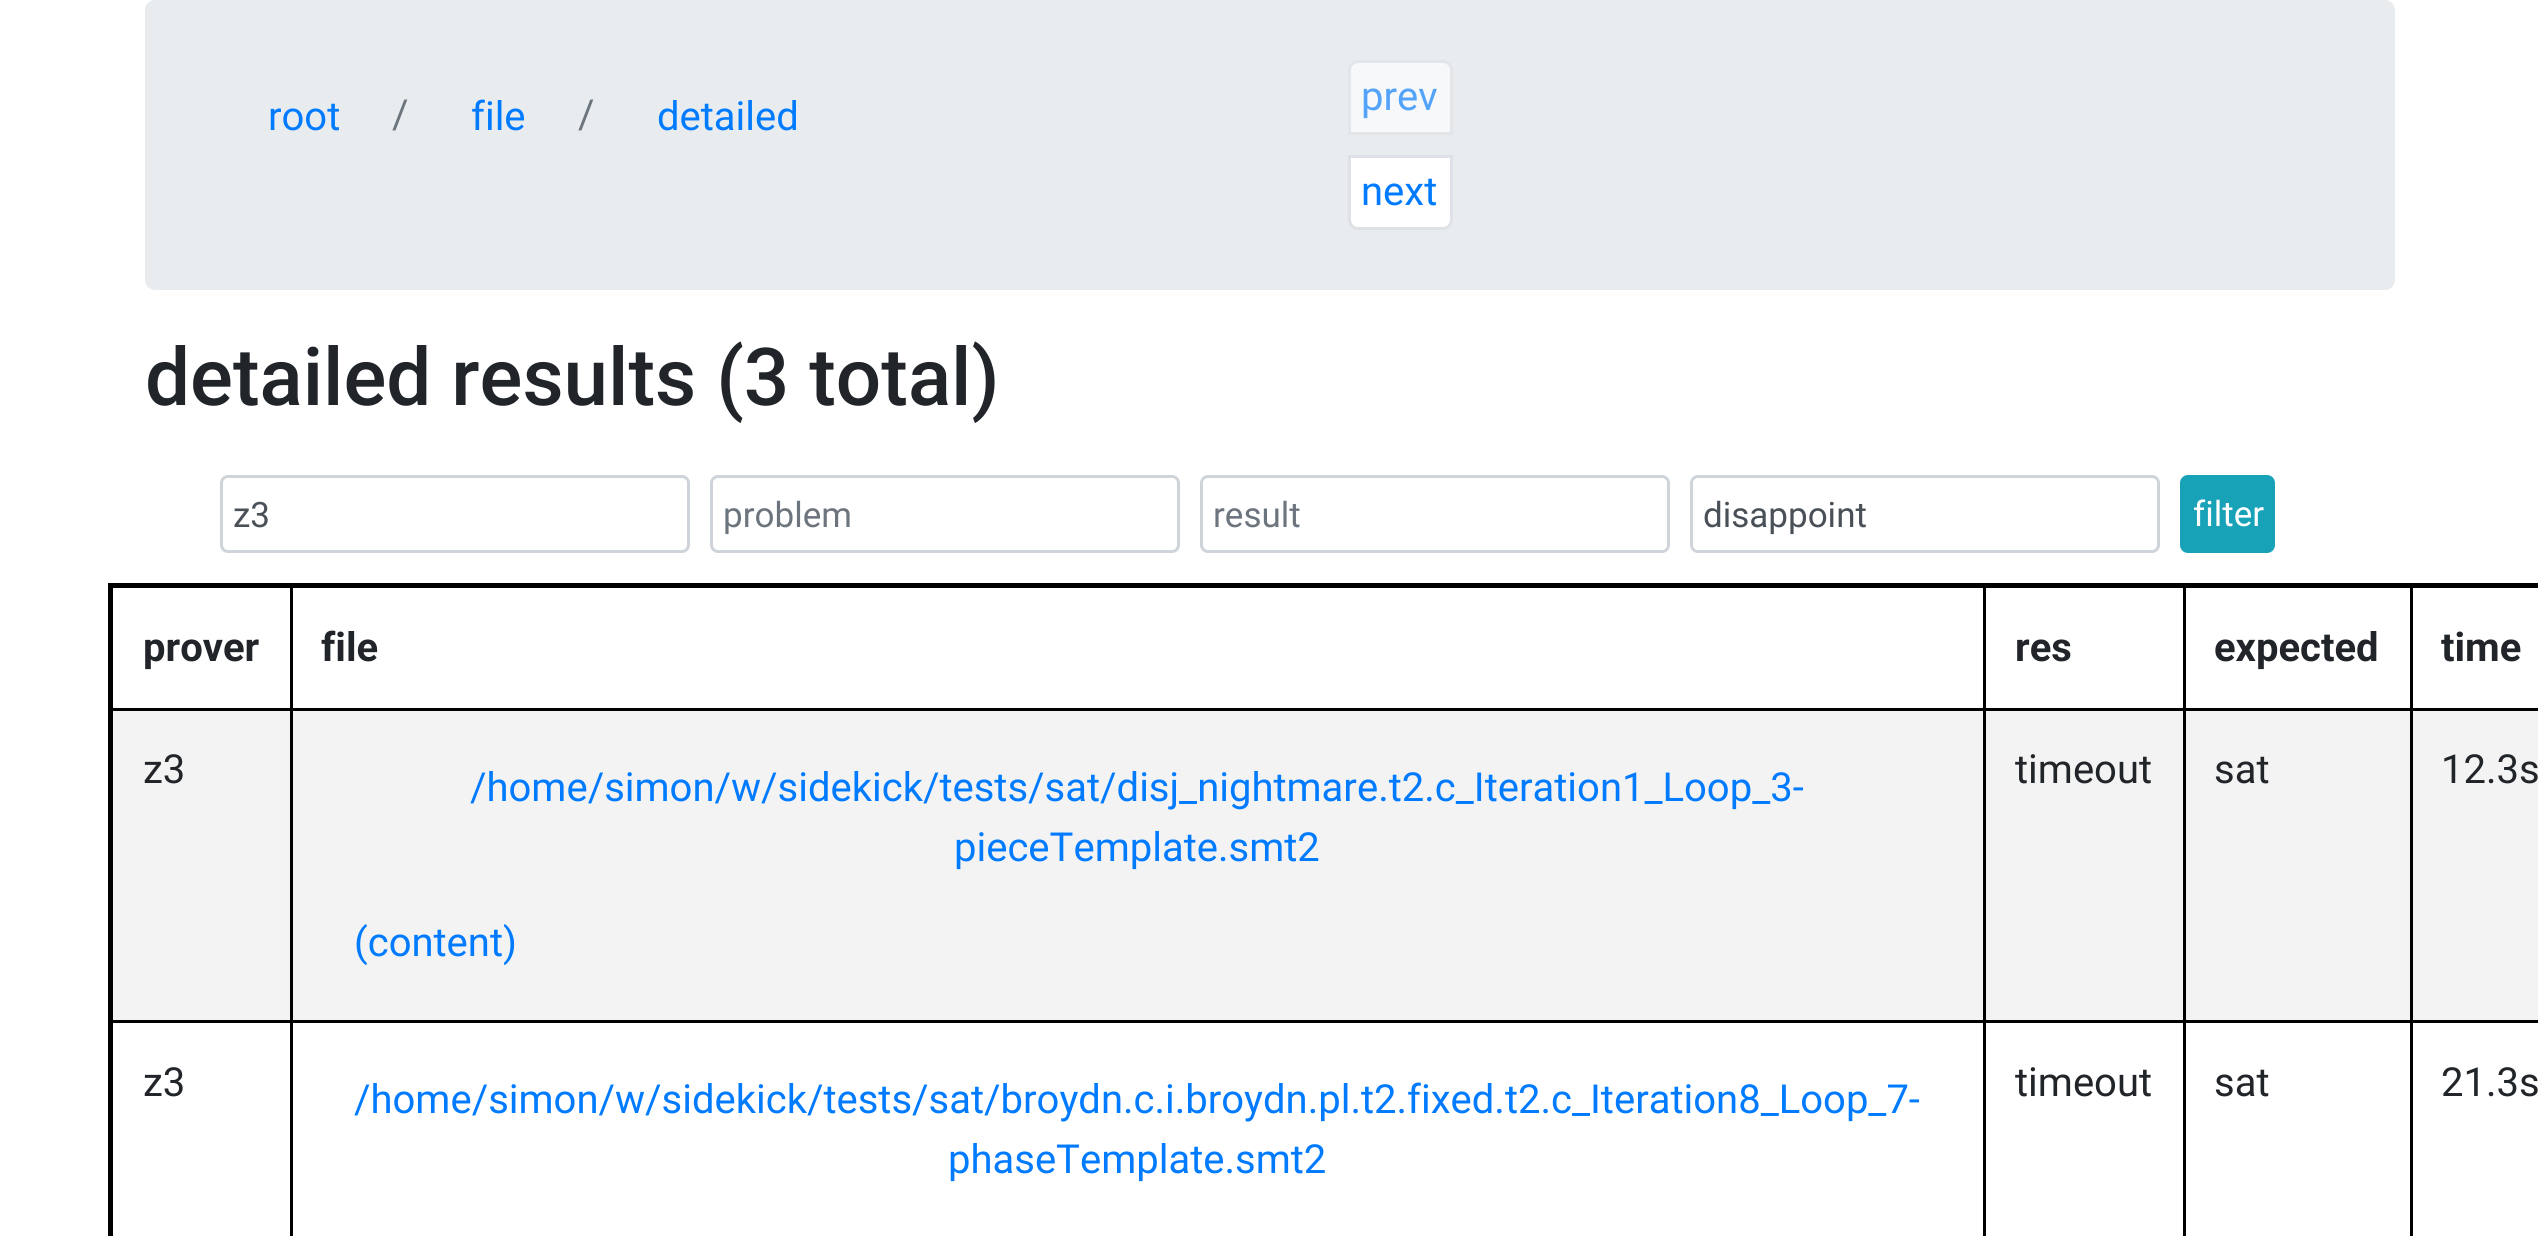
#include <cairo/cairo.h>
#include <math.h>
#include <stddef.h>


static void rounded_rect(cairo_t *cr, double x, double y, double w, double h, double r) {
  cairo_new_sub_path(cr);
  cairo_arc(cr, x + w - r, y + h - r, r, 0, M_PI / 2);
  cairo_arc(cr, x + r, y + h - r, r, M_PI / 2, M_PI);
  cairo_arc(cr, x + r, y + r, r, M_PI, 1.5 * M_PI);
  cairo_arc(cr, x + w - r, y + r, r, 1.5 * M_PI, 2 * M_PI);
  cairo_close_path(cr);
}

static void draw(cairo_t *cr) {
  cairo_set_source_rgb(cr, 1, 1, 1);
  cairo_paint(cr);
  cairo_set_source_rgb(cr, 233 / 255.0, 236 / 255.0, 239 / 255.0);
  rounded_rect(cr, 145, 0, 2250, 290, 10);
  cairo_fill(cr);
  cairo_set_source_rgb(cr, 247 / 255.0, 248 / 255.0, 249 / 255.0);
  cairo_new_path(cr);
  cairo_move_to(cr, 1358, 61.5);
  cairo_line_to(cr, 1443, 61.5);
  cairo_curve_to(cr, 1447.5, 61.5, 1451.5, 65.5, 1451.5, 70);
  cairo_line_to(cr, 1451.5, 133.5);
  cairo_line_to(cr, 1349.5, 133.5);
  cairo_line_to(cr, 1349.5, 70);
  cairo_curve_to(cr, 1349.5, 65.5, 1353.5, 61.5, 1358, 61.5);
  cairo_close_path(cr);
  cairo_fill_preserve(cr);
  cairo_set_source_rgb(cr, 226 / 255.0, 230 / 255.0, 233 / 255.0);
  cairo_set_line_width(cr, 3);
  cairo_stroke(cr);
  cairo_set_source_rgb(cr, 1, 1, 1);
  cairo_new_path(cr);
  cairo_move_to(cr, 1349.5, 156.5);
  cairo_line_to(cr, 1451.5, 156.5);
  cairo_line_to(cr, 1451.5, 220);
  cairo_curve_to(cr, 1451.5, 224.5, 1447.5, 228.5, 1443, 228.5);
  cairo_line_to(cr, 1358, 228.5);
  cairo_curve_to(cr, 1353.5, 228.5, 1349.5, 224.5, 1349.5, 220);
  cairo_close_path(cr);
  cairo_fill_preserve(cr);
  cairo_set_source_rgb(cr, 222 / 255.0, 226 / 255.0, 230 / 255.0);
  cairo_stroke(cr);
  rounded_rect(cr, 221.5, 476.5, 467, 75, 6.5);
  cairo_set_source_rgb(cr, 206 / 255.0, 212 / 255.0, 218 / 255.0);
  cairo_stroke(cr);
  rounded_rect(cr, 711.5, 476.5, 467, 75, 6.5);
  cairo_stroke(cr);
  rounded_rect(cr, 1201.5, 476.5, 467, 75, 6.5);
  cairo_stroke(cr);
  rounded_rect(cr, 1691.5, 476.5, 467, 75, 6.5);
  cairo_stroke(cr);
  cairo_set_source_rgb(cr, 23 / 255.0, 162 / 255.0, 184 / 255.0);
  rounded_rect(cr, 2181.5, 476.5, 92, 75, 6.5);
  cairo_fill_preserve(cr);
  cairo_stroke(cr);
  cairo_set_source_rgb(cr, 0, 0, 0);
  cairo_rectangle(cr, 2410, 708, 128, 3);
  cairo_fill(cr);
  cairo_set_source_rgb(cr, 243 / 255.0, 243 / 255.0, 243 / 255.0);
  cairo_rectangle(cr, 113, 711, 2425, 309);
  cairo_fill(cr);
  cairo_set_source_rgb(cr, 0, 0, 0);
  cairo_rectangle(cr, 2410, 1020, 128, 3);
  cairo_fill(cr);
  cairo_rectangle(cr, 2410, 1020, 3, 216);
  cairo_fill(cr);
  cairo_rectangle(cr, 2183, 1020, 230, 3);
  cairo_fill(cr);
  cairo_rectangle(cr, 2410, 708, 3, 315);
  cairo_fill(cr);
  cairo_rectangle(cr, 2183, 708, 230, 3);
  cairo_fill(cr);
  cairo_rectangle(cr, 2183, 1020, 3, 216);
  cairo_fill(cr);
  cairo_rectangle(cr, 1983, 1020, 202, 3);
  cairo_fill(cr);
  cairo_rectangle(cr, 2183, 708, 3, 315);
  cairo_fill(cr);
  cairo_rectangle(cr, 1983, 708, 202, 3);
  cairo_fill(cr);
  cairo_rectangle(cr, 1983, 1020, 3, 216);
  cairo_fill(cr);
  cairo_rectangle(cr, 290, 1020, 1695, 3);
  cairo_fill(cr);
  cairo_rectangle(cr, 1983, 708, 3, 315);
  cairo_fill(cr);
  cairo_rectangle(cr, 290, 708, 1695, 3);
  cairo_fill(cr);
  cairo_rectangle(cr, 290, 1020, 3, 216);
  cairo_fill(cr);
  cairo_rectangle(cr, 110, 1020, 183, 3);
  cairo_fill(cr);
  cairo_rectangle(cr, 290, 708, 3, 315);
  cairo_fill(cr);
  cairo_rectangle(cr, 110, 708, 183, 3);
  cairo_fill(cr);
  cairo_rectangle(cr, 290, 585, 3, 125);
  cairo_fill(cr);
  cairo_rectangle(cr, 1983, 585, 3, 125);
  cairo_fill(cr);
  cairo_rectangle(cr, 2183, 585, 3, 125);
  cairo_fill(cr);
  cairo_rectangle(cr, 2410, 585, 3, 125);
  cairo_fill(cr);
  cairo_rectangle(cr, 108, 583, 2430, 5);
  cairo_fill(cr);
  cairo_rectangle(cr, 108, 583, 5, 653);
  cairo_fill(cr);
  cairo_select_font_face(cr, "Roboto", CAIRO_FONT_SLANT_NORMAL, CAIRO_FONT_WEIGHT_NORMAL);
  cairo_set_font_size(cr, 40);
  cairo_set_source_rgb(cr, 0, 123 / 255.0, 1);
  cairo_move_to(cr, 268, 130);
  cairo_show_text(cr, "root");
  cairo_set_source_rgb(cr, 108 / 255.0, 117 / 255.0, 125 / 255.0);
  cairo_move_to(cr, 392, 128);
  cairo_show_text(cr, "/");
  cairo_set_source_rgb(cr, 0, 123 / 255.0, 1);
  cairo_move_to(cr, 471, 130);
  cairo_show_text(cr, "file");
  cairo_set_source_rgb(cr, 108 / 255.0, 117 / 255.0, 125 / 255.0);
  cairo_move_to(cr, 578, 128);
  cairo_show_text(cr, "/");
  cairo_set_source_rgb(cr, 0, 123 / 255.0, 1);
  cairo_move_to(cr, 657, 130);
  cairo_show_text(cr, "detailed");
  cairo_set_source_rgb(cr, 82 / 255.0, 163 / 255.0, 249 / 255.0);
  cairo_move_to(cr, 1361, 110);
  cairo_show_text(cr, "prev");
  cairo_set_source_rgb(cr, 0, 123 / 255.0, 1);
  cairo_move_to(cr, 1361, 205);
  cairo_show_text(cr, "next");
  cairo_select_font_face(cr, "Roboto Medium", CAIRO_FONT_SLANT_NORMAL, CAIRO_FONT_WEIGHT_NORMAL);
  cairo_set_font_size(cr, 80);
  cairo_set_source_rgb(cr, 33 / 255.0, 37 / 255.0, 41 / 255.0);
  cairo_move_to(cr, 145, 405);
  cairo_show_text(cr, "detailed results (3 total)");
  cairo_select_font_face(cr, "Roboto", CAIRO_FONT_SLANT_NORMAL, CAIRO_FONT_WEIGHT_NORMAL);
  cairo_set_font_size(cr, 35);
  cairo_set_source_rgb(cr, 73 / 255.0, 80 / 255.0, 87 / 255.0);
  cairo_move_to(cr, 233, 527);
  cairo_show_text(cr, "z3");
  cairo_set_source_rgb(cr, 108 / 255.0, 117 / 255.0, 125 / 255.0);
  cairo_move_to(cr, 723, 527);
  cairo_show_text(cr, "problem");
  cairo_move_to(cr, 1213, 527);
  cairo_show_text(cr, "result");
  cairo_set_source_rgb(cr, 73 / 255.0, 80 / 255.0, 87 / 255.0);
  cairo_move_to(cr, 1703, 527);
  cairo_show_text(cr, "disappoint");
  cairo_set_source_rgb(cr, 1, 1, 1);
  cairo_move_to(cr, 2193, 526);
  cairo_show_text(cr, "filter");
  cairo_select_font_face(cr, "Roboto", CAIRO_FONT_SLANT_NORMAL, CAIRO_FONT_WEIGHT_BOLD);
  cairo_set_font_size(cr, 40);
  cairo_set_source_rgb(cr, 33 / 255.0, 37 / 255.0, 41 / 255.0);
  cairo_move_to(cr, 143, 661);
  cairo_show_text(cr, "prover");
  cairo_move_to(cr, 321, 661);
  cairo_show_text(cr, "file");
  cairo_move_to(cr, 2015, 661);
  cairo_show_text(cr, "res");
  cairo_move_to(cr, 2214, 661);
  cairo_show_text(cr, "expected");
  cairo_move_to(cr, 2441, 661);
  cairo_show_text(cr, "time");
  cairo_select_font_face(cr, "Roboto", CAIRO_FONT_SLANT_NORMAL, CAIRO_FONT_WEIGHT_NORMAL);
  cairo_move_to(cr, 143, 783);
  cairo_show_text(cr, "z3");
  cairo_set_source_rgb(cr, 0, 123 / 255.0, 1);
  cairo_move_to(cr, 470, 801);
  cairo_show_text(cr, "/home/simon/w/sidekick/tests/sat/disj_nightmare.t2.c_Iteration1_Loop_3-");
  cairo_move_to(cr, 954, 861);
  cairo_show_text(cr, "pieceTemplate.smt2");
  cairo_move_to(cr, 354, 956);
  cairo_show_text(cr, "(content)");
  cairo_set_source_rgb(cr, 33 / 255.0, 37 / 255.0, 41 / 255.0);
  cairo_move_to(cr, 2015, 783);
  cairo_show_text(cr, "timeout");
  cairo_move_to(cr, 2214, 783);
  cairo_show_text(cr, "sat");
  cairo_move_to(cr, 2441, 783);
  cairo_show_text(cr, "12.3s");
  cairo_move_to(cr, 143, 1096);
  cairo_show_text(cr, "z3");
  cairo_set_source_rgb(cr, 0, 123 / 255.0, 1);
  cairo_move_to(cr, 354, 1113);
  cairo_show_text(cr, "/home/simon/w/sidekick/tests/sat/broydn.c.i.broydn.pl.t2.fixed.t2.c_Iteration8_Loop_7-");
  cairo_move_to(cr, 948, 1173);
  cairo_show_text(cr, "phaseTemplate.smt2");
  cairo_set_source_rgb(cr, 33 / 255.0, 37 / 255.0, 41 / 255.0);
  cairo_move_to(cr, 2015, 1096);
  cairo_show_text(cr, "timeout");
  cairo_move_to(cr, 2214, 1096);
  cairo_show_text(cr, "sat");
  cairo_move_to(cr, 2441, 1096);
  cairo_show_text(cr, "21.3s");
}

int main(void) {
  cairo_surface_t *surface = cairo_image_surface_create(CAIRO_FORMAT_RGB24, 2538, 1236);
  cairo_t *cr = cairo_create(surface);
  cairo_font_options_t *options = cairo_font_options_create();
  cairo_font_options_set_hint_metrics(options, CAIRO_HINT_METRICS_OFF);
  cairo_font_options_set_hint_style(options, CAIRO_HINT_STYLE_NONE);
  cairo_set_font_options(cr, options);
  cairo_set_miter_limit(cr, 4);
  draw(cr);
  cairo_surface_write_to_png(surface, "out.png");
  cairo_font_options_destroy(options);
  cairo_destroy(cr);
  cairo_surface_destroy(surface);
  return 0;
}
